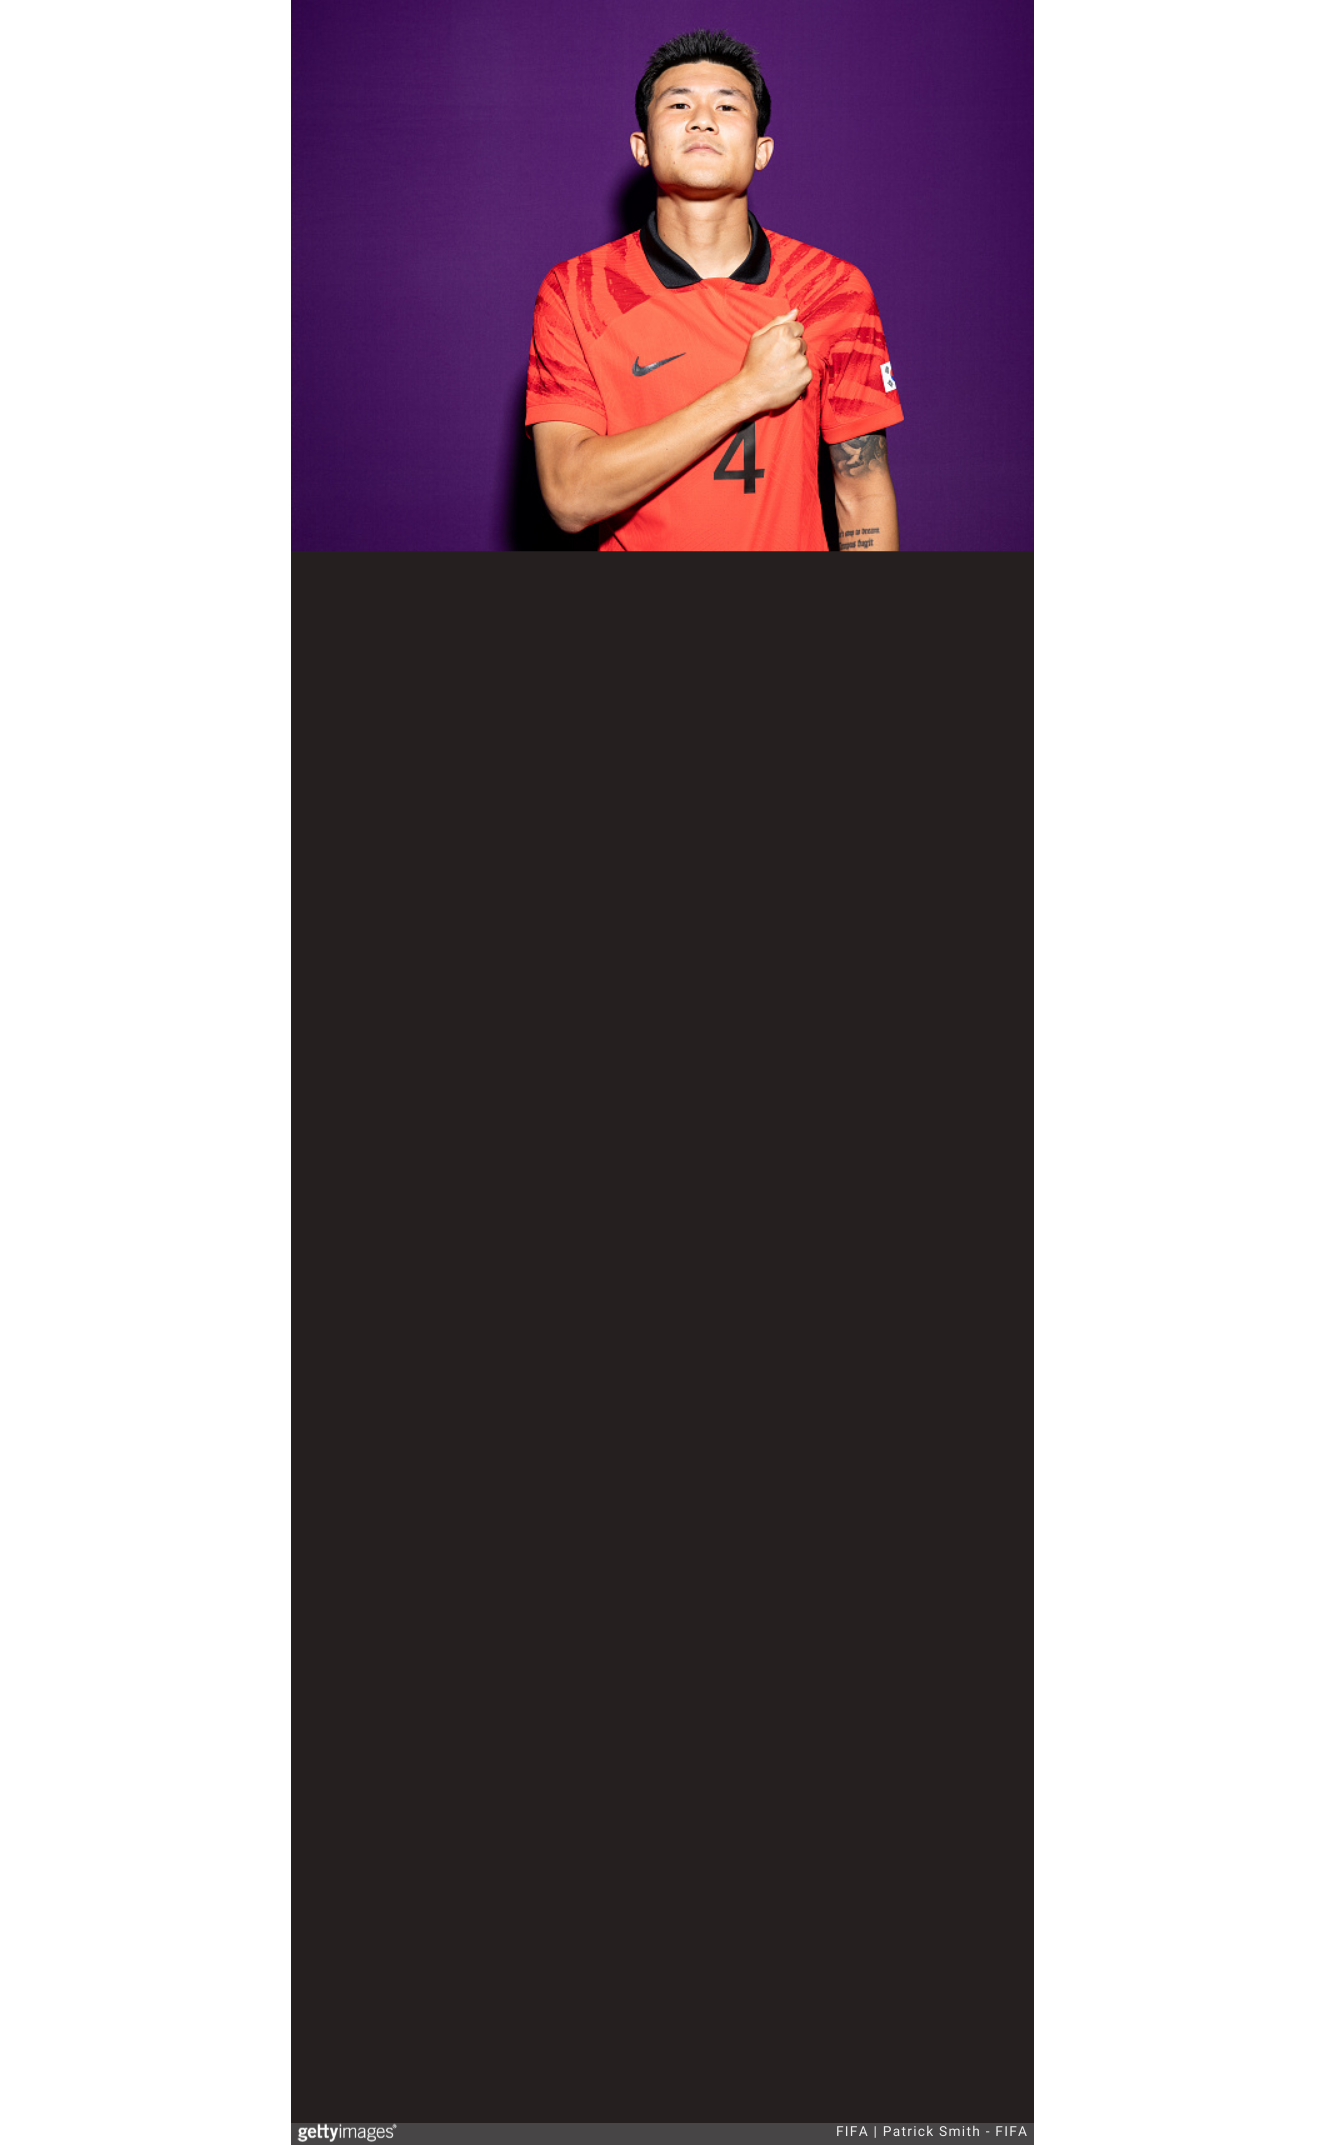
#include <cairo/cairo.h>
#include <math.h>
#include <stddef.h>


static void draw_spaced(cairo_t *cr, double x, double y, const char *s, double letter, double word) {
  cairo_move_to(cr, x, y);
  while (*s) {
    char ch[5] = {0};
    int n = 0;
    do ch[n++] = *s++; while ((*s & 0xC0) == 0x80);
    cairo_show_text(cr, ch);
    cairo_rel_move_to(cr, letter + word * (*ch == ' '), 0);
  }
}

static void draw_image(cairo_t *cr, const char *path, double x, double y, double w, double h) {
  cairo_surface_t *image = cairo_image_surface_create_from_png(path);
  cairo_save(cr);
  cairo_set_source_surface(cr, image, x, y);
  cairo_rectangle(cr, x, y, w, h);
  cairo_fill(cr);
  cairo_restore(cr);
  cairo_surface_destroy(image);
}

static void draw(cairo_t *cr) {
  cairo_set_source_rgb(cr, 1, 1, 1);
  cairo_paint(cr);
  cairo_set_source_rgb(cr, 37 / 255.0, 31 / 255.0, 32 / 255.0);
  cairo_rectangle(cr, 291, 0, 743, 2123);
  cairo_fill(cr);
  draw_image(cr, "images/1.png", 291, 0, 743, 552);
  cairo_set_source_rgb(cr, 71 / 255.0, 69 / 255.0, 69 / 255.0);
  cairo_rectangle(cr, 291, 2123, 743, 22);
  cairo_fill(cr);
  draw_image(cr, "images/2.png", 297, 2123, 100, 19);
  cairo_select_font_face(cr, "Roboto", CAIRO_FONT_SLANT_NORMAL, CAIRO_FONT_WEIGHT_NORMAL);
  cairo_set_font_size(cr, 13.75);
  cairo_set_source_rgb(cr, 238 / 255.0, 238 / 255.0, 238 / 255.0);
  draw_spaced(cr, 836, 2136, "FIFA | Patrick Smith - FIFA", 1.25, 0);
}

int main(void) {
  cairo_surface_t *surface = cairo_image_surface_create(CAIRO_FORMAT_RGB24, 1323, 2145);
  cairo_t *cr = cairo_create(surface);
  cairo_font_options_t *options = cairo_font_options_create();
  cairo_font_options_set_hint_metrics(options, CAIRO_HINT_METRICS_OFF);
  cairo_font_options_set_hint_style(options, CAIRO_HINT_STYLE_NONE);
  cairo_set_font_options(cr, options);
  cairo_set_miter_limit(cr, 4);
  draw(cr);
  cairo_surface_write_to_png(surface, "out.png");
  cairo_font_options_destroy(options);
  cairo_destroy(cr);
  cairo_surface_destroy(surface);
  return 0;
}
